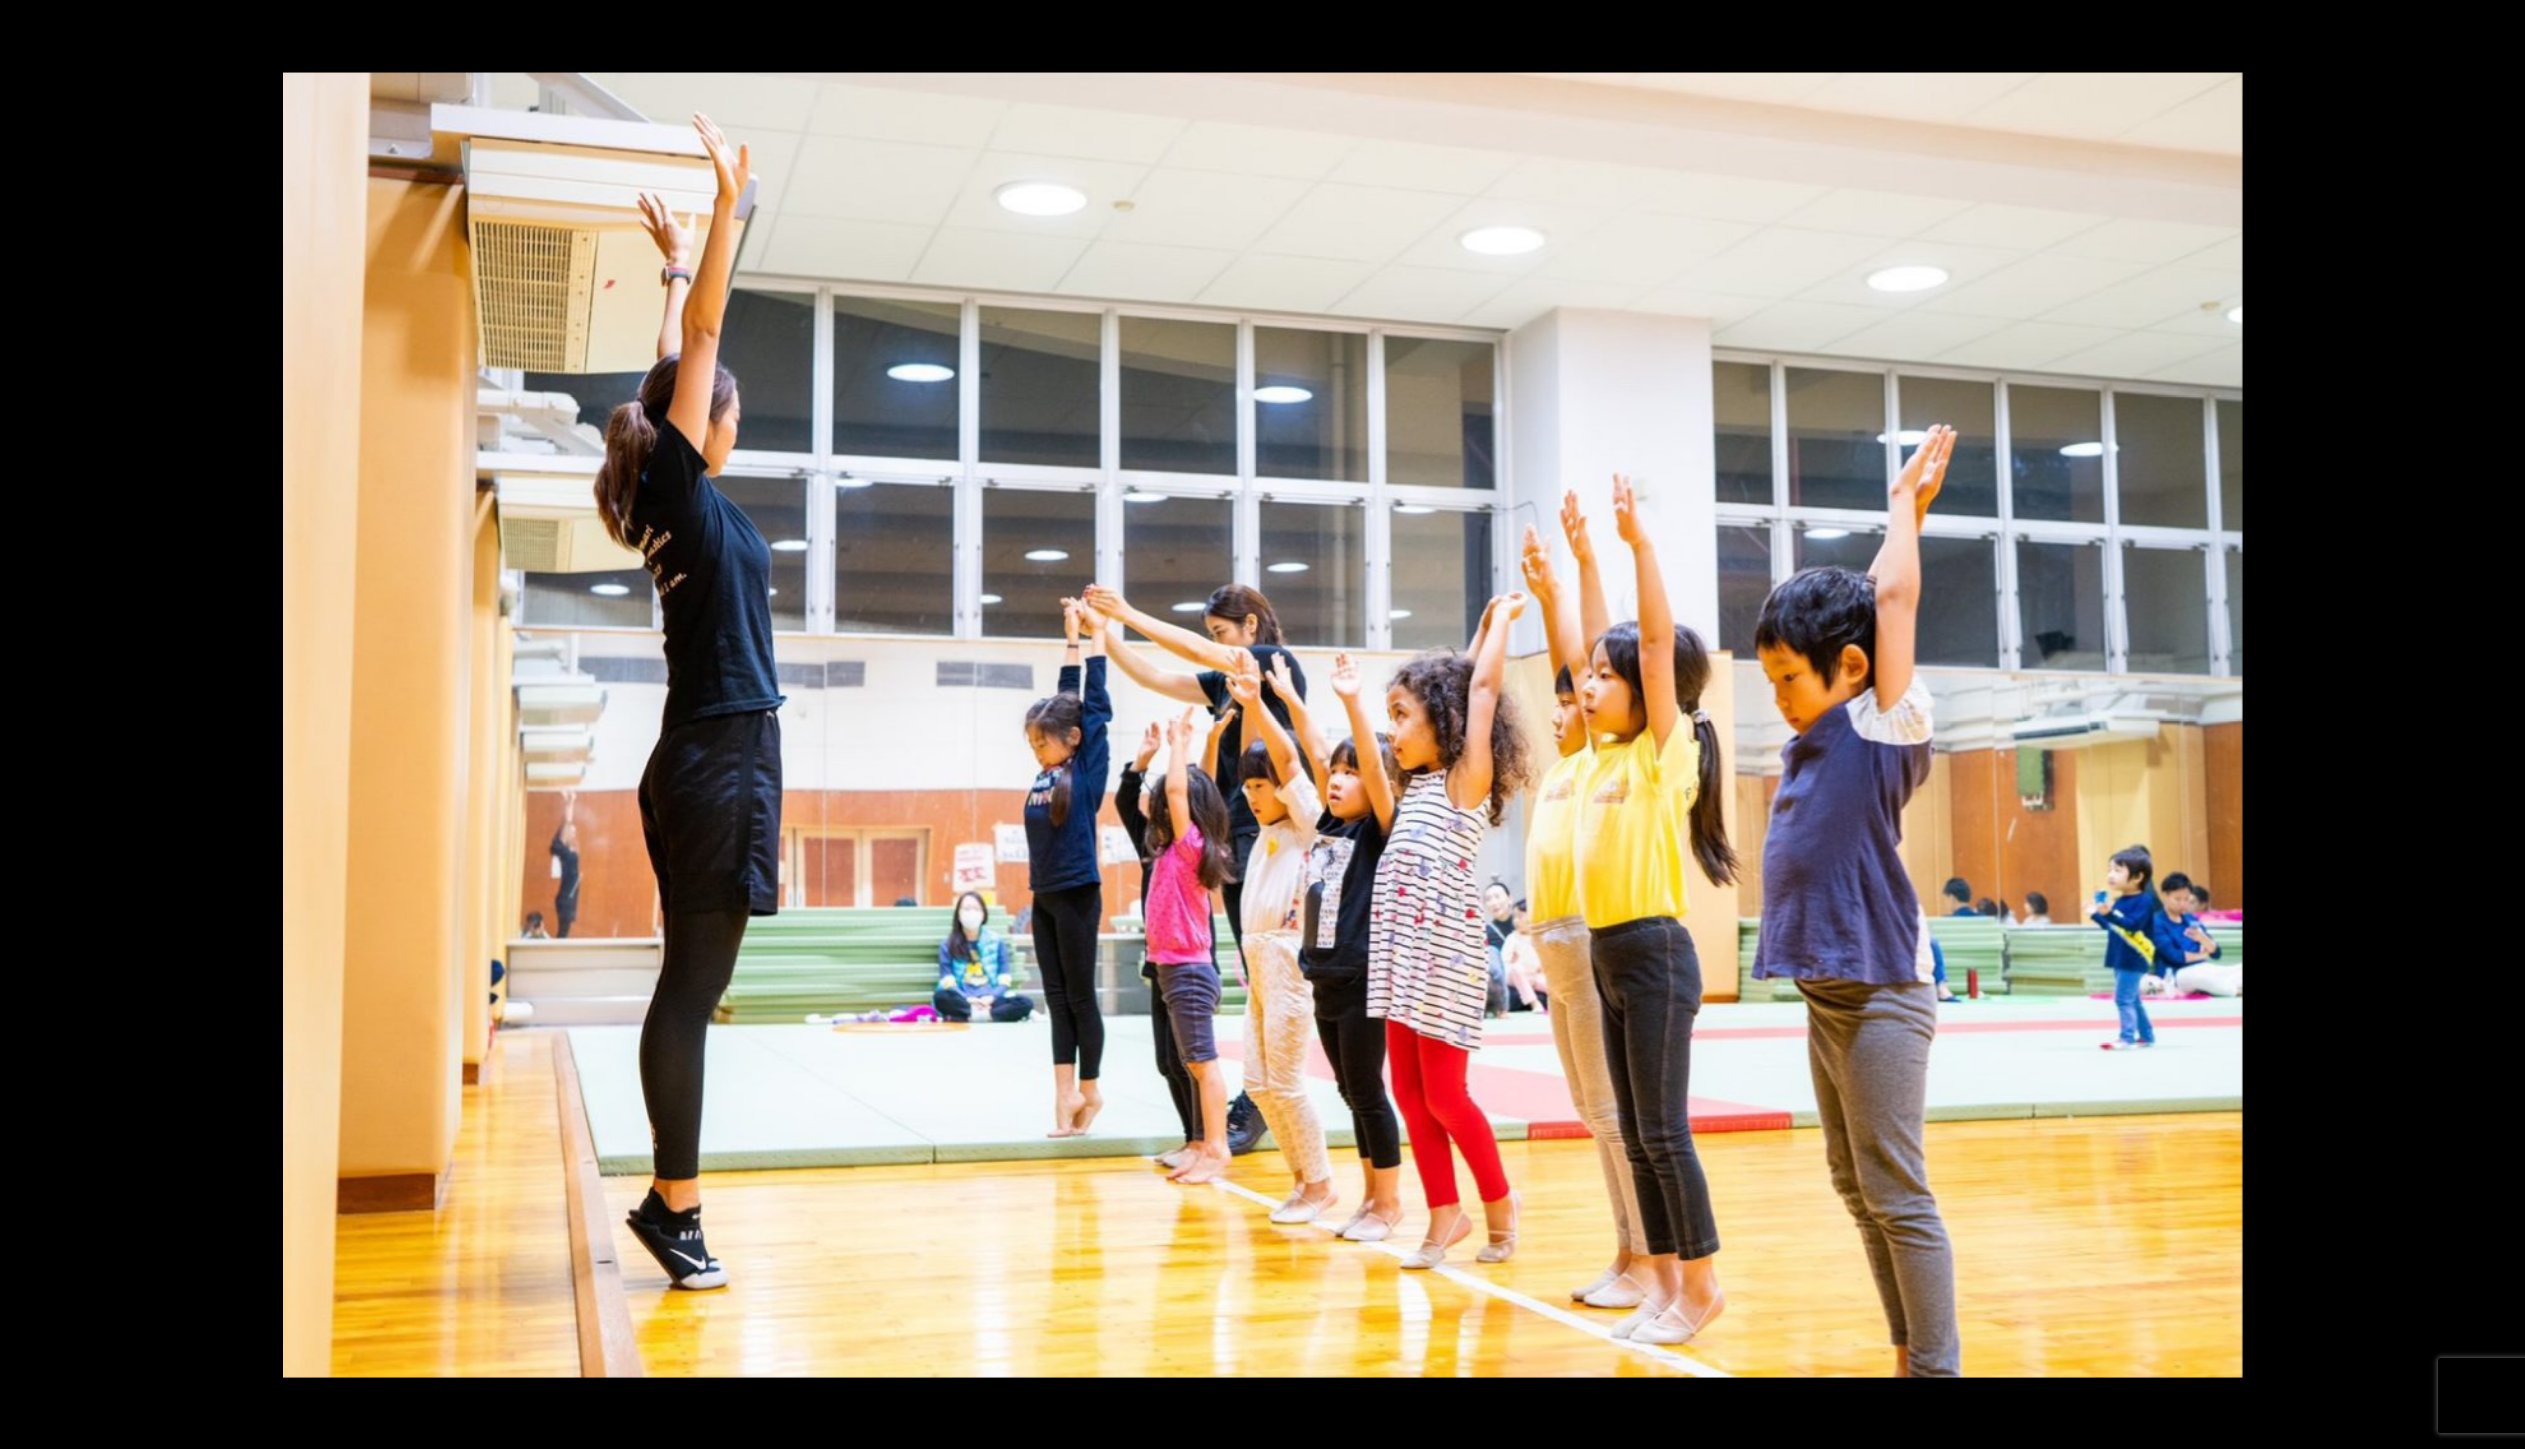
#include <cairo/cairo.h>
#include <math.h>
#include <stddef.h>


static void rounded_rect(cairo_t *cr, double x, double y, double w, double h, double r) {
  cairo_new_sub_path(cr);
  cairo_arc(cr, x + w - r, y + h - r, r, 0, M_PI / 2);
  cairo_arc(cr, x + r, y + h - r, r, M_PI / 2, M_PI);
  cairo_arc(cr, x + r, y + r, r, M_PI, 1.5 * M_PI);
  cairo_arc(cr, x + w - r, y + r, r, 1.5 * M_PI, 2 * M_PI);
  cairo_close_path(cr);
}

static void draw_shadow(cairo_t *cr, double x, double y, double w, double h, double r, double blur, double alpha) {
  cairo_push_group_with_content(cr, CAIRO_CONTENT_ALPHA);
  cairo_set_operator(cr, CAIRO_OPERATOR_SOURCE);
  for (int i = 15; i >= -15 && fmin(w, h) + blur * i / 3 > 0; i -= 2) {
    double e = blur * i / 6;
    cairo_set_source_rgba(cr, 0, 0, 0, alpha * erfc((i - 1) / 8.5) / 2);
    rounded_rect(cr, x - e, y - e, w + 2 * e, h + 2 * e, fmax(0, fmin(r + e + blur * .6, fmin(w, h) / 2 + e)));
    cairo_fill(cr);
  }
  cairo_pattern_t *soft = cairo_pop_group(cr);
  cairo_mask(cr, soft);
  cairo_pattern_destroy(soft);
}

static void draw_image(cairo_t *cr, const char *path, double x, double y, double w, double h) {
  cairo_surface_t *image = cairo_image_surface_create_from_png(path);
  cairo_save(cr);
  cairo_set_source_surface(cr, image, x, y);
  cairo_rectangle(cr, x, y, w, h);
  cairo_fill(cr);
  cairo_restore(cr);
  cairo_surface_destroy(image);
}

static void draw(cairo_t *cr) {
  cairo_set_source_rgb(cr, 0, 0, 0);
  cairo_paint(cr);
  draw_image(cr, "images/1.png", 283, 72, 1960, 1306);
  cairo_save(cr);
  cairo_set_fill_rule(cr, CAIRO_FILL_RULE_EVEN_ODD);
  cairo_new_path(cr);
  cairo_move_to(cr, 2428, 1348);
  cairo_line_to(cr, 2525, 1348);
  cairo_line_to(cr, 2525, 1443);
  cairo_line_to(cr, 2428, 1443);
  cairo_close_path(cr);
  cairo_move_to(cr, 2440.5, 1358);
  cairo_line_to(cr, 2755.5, 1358);
  cairo_curve_to(cr, 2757, 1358, 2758, 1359, 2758, 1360.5);
  cairo_line_to(cr, 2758, 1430.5);
  cairo_curve_to(cr, 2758, 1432, 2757, 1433, 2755.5, 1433);
  cairo_line_to(cr, 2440.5, 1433);
  cairo_curve_to(cr, 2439, 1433, 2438, 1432, 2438, 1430.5);
  cairo_line_to(cr, 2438, 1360.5);
  cairo_curve_to(cr, 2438, 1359, 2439, 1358, 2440.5, 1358);
  cairo_close_path(cr);
  cairo_clip(cr);
  cairo_set_source_rgb(cr, 128 / 255.0, 128 / 255.0, 128 / 255.0);
  draw_shadow(cr, 2438, 1358, 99, 75, 2.5, 3, 1);
  cairo_restore(cr);
}

int main(void) {
  cairo_surface_t *surface = cairo_image_surface_create(CAIRO_FORMAT_RGB24, 2525, 1449);
  cairo_t *cr = cairo_create(surface);
  cairo_font_options_t *options = cairo_font_options_create();
  cairo_font_options_set_hint_metrics(options, CAIRO_HINT_METRICS_OFF);
  cairo_font_options_set_hint_style(options, CAIRO_HINT_STYLE_NONE);
  cairo_set_font_options(cr, options);
  cairo_set_miter_limit(cr, 4);
  draw(cr);
  cairo_surface_write_to_png(surface, "out.png");
  cairo_font_options_destroy(options);
  cairo_destroy(cr);
  cairo_surface_destroy(surface);
  return 0;
}
